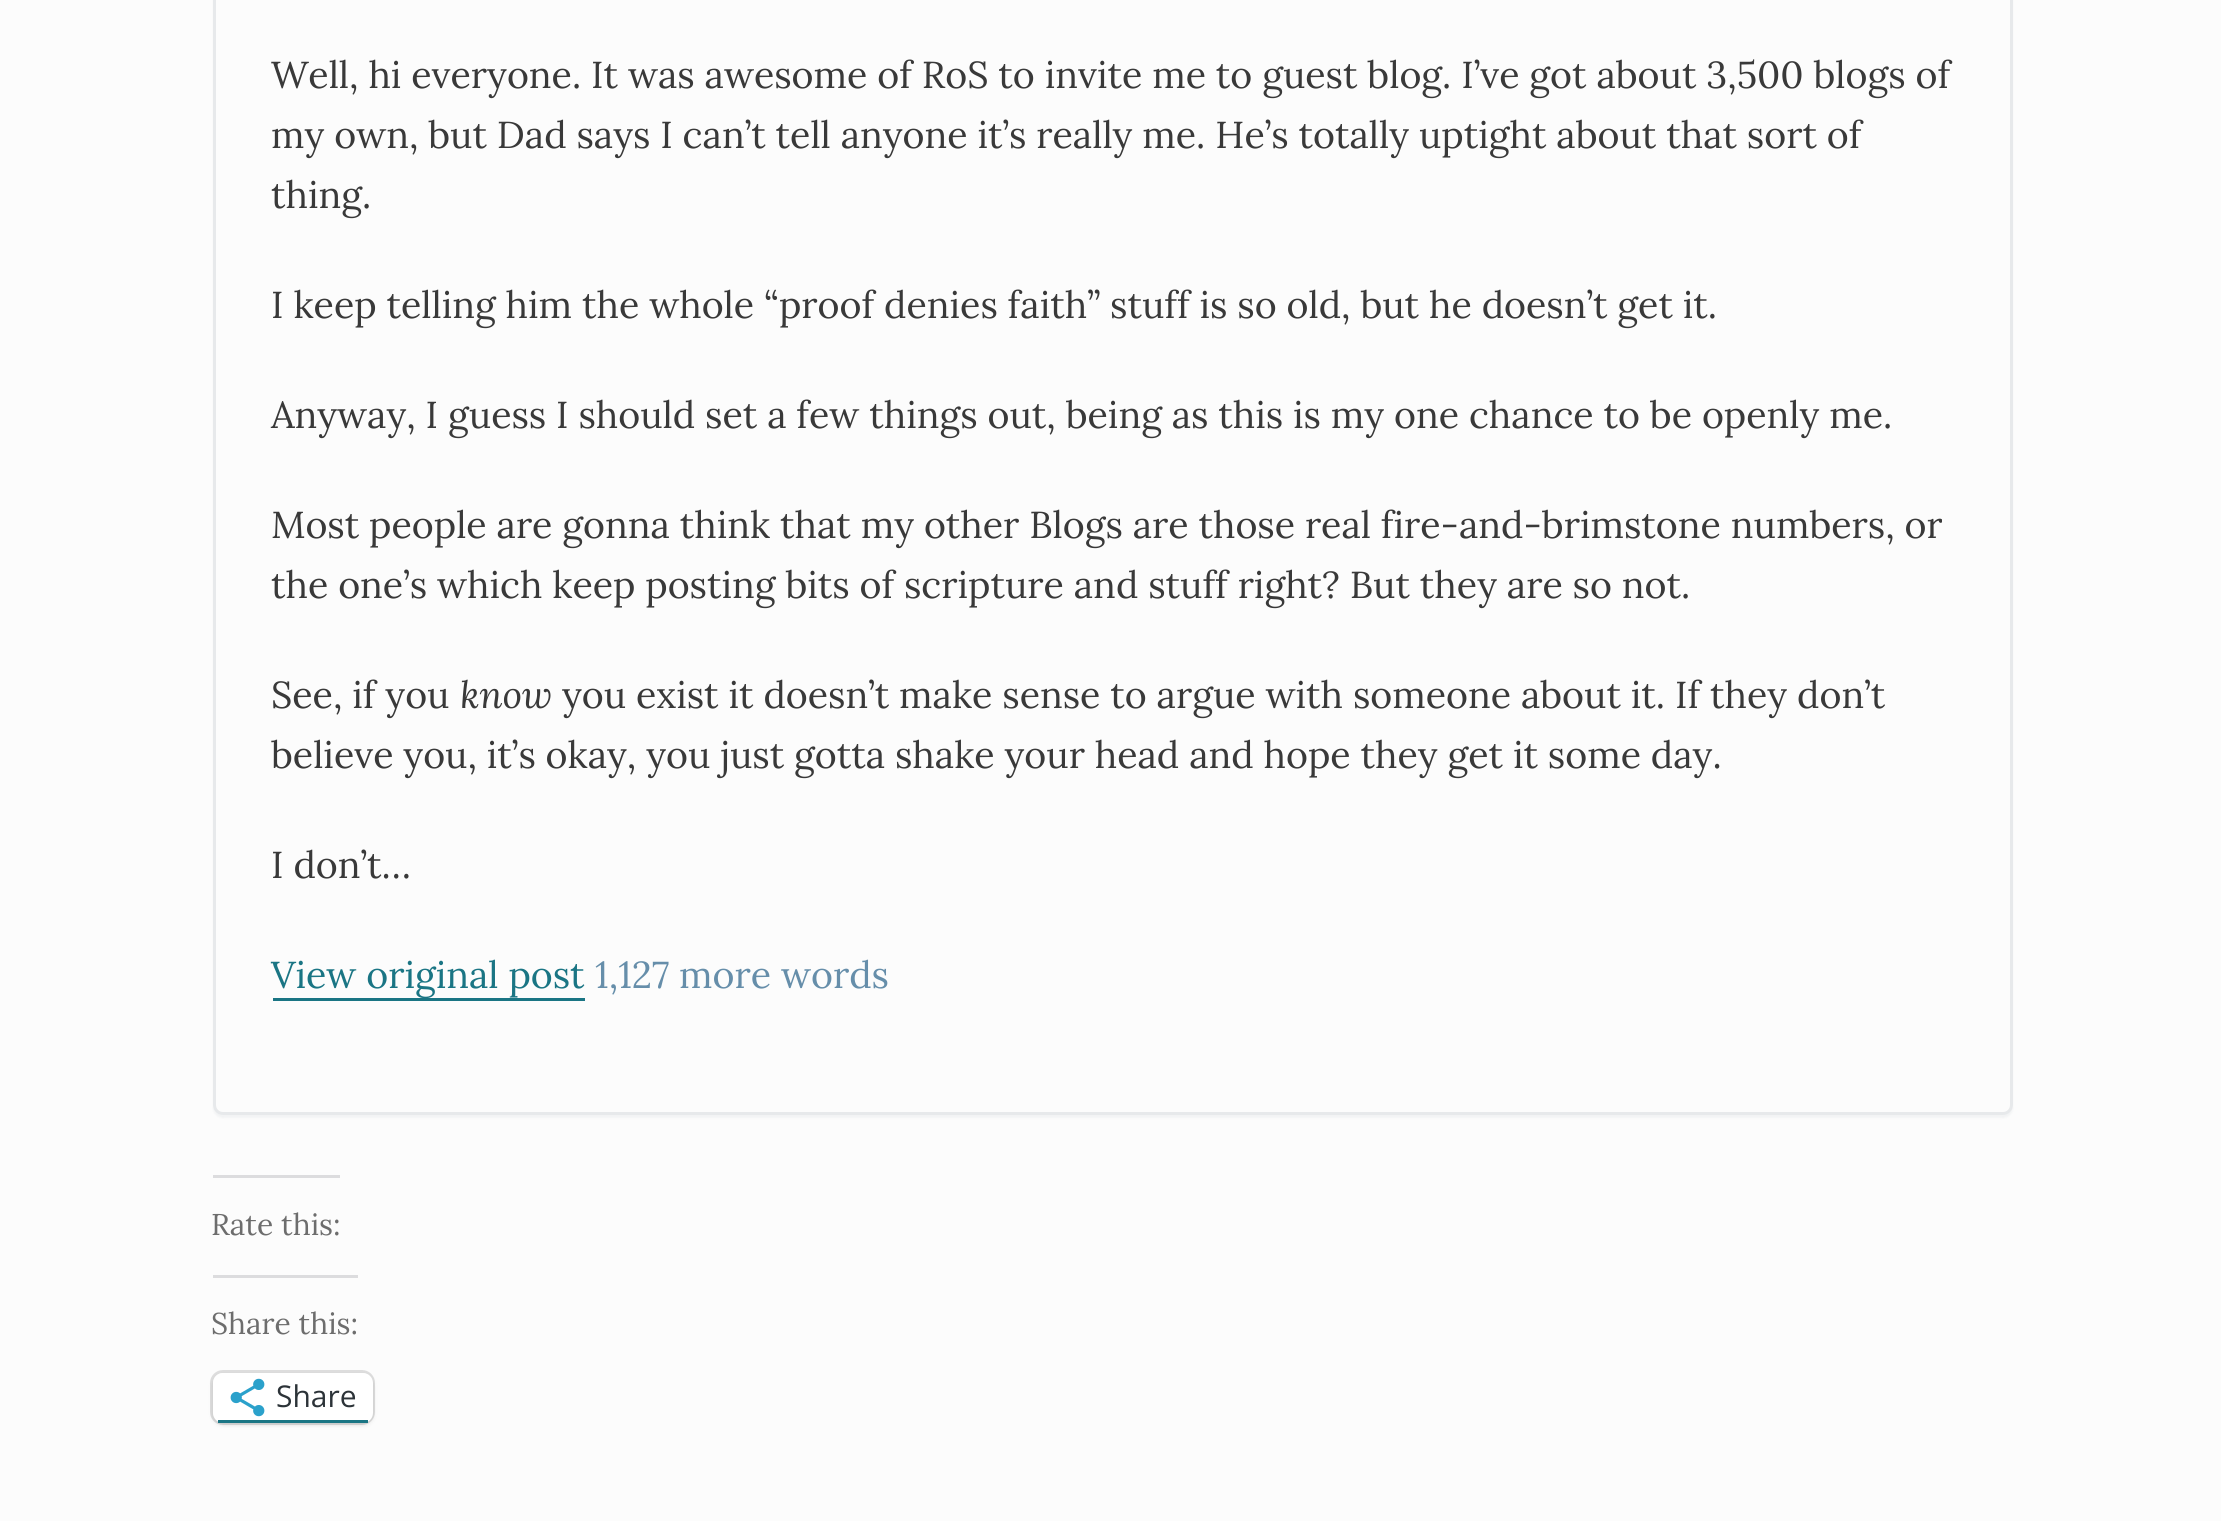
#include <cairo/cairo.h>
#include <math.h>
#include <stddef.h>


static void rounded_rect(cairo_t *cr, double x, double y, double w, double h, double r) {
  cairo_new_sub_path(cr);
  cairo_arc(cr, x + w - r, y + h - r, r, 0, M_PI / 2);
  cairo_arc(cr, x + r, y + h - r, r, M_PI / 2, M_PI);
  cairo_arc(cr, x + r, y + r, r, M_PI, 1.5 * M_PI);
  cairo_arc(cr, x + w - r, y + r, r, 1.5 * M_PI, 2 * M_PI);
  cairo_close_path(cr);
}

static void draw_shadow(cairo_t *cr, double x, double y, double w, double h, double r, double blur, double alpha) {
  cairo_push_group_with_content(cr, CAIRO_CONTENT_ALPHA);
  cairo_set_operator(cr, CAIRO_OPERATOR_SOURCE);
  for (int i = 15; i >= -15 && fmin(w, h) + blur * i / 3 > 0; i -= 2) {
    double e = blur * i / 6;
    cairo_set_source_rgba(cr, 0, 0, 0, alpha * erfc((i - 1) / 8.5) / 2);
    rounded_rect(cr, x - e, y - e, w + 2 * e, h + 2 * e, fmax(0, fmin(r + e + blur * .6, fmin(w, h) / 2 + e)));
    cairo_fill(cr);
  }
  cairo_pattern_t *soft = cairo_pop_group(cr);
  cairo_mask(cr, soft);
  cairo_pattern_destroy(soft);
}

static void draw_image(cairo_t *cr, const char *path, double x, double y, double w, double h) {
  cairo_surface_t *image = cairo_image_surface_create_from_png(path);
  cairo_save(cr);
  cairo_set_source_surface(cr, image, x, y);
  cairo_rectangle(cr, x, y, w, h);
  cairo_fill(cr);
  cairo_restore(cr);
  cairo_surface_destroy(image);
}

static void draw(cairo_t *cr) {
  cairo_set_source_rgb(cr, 252 / 255.0, 252 / 255.0, 252 / 255.0);
  cairo_paint(cr);
  cairo_save(cr);
  cairo_set_fill_rule(cr, CAIRO_FILL_RULE_EVEN_ODD);
  cairo_new_path(cr);
  cairo_move_to(cr, 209, 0);
  cairo_line_to(cr, 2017, 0);
  cairo_line_to(cr, 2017, 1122);
  cairo_line_to(cr, 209, 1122);
  cairo_close_path(cr);
  cairo_move_to(cr, 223, -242);
  cairo_line_to(cr, 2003, -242);
  cairo_curve_to(cr, 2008.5, -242, 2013, -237.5, 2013, -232);
  cairo_line_to(cr, 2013, 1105);
  cairo_curve_to(cr, 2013, 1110.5, 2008.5, 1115, 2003, 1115);
  cairo_line_to(cr, 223, 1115);
  cairo_curve_to(cr, 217.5, 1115, 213, 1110.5, 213, 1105);
  cairo_line_to(cr, 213, -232);
  cairo_curve_to(cr, 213, -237.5, 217.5, -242, 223, -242);
  cairo_close_path(cr);
  cairo_clip(cr);
  cairo_set_source_rgb(cr, 46 / 255.0, 68 / 255.0, 83 / 255.0);
  draw_shadow(cr, 213, -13, 1800, 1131, 10, 1, 0.05);
  cairo_restore(cr);
  rounded_rect(cr, 214.5, -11.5, 1797, 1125, 8.5);
  cairo_set_source_rgba(cr, 46 / 255.0, 68 / 255.0, 83 / 255.0, 0.1);
  cairo_set_line_width(cr, 3);
  cairo_stroke(cr);
  cairo_set_source_rgb(cr, 26 / 255.0, 117 / 255.0, 132 / 255.0);
  cairo_rectangle(cr, 273, 998, 312, 3);
  cairo_fill(cr);
  cairo_set_source_rgb(cr, 220 / 255.0, 220 / 255.0, 222 / 255.0);
  cairo_rectangle(cr, 213, 1175, 127, 3);
  cairo_fill(cr);
  cairo_rectangle(cr, 213, 1275, 145, 3);
  cairo_fill(cr);
  rounded_rect(cr, 211.5, 1371.5, 162, 52, 11.5);
  cairo_set_source_rgb(cr, 222 / 255.0, 222 / 255.0, 222 / 255.0);
  cairo_stroke(cr);
  cairo_set_source_rgb(cr, 0, 0, 0);
  draw_shadow(cr, 213, 1375, 160, 50, 10, 2.5, 0.12);
  cairo_set_source_rgb(cr, 1, 1, 1);
  rounded_rect(cr, 213, 1373, 160, 50, 10);
  cairo_fill(cr);
  cairo_set_source_rgb(cr, 26 / 255.0, 117 / 255.0, 132 / 255.0);
  cairo_rectangle(cr, 218, 1420, 150, 3);
  cairo_fill(cr);
  draw_image(cr, "images/1.png", 230, 1378, 35, 39);
  cairo_select_font_face(cr, "Lora", CAIRO_FONT_SLANT_NORMAL, CAIRO_FONT_WEIGHT_NORMAL);
  cairo_set_font_size(cr, 37.5);
  cairo_set_source_rgb(cr, 57 / 255.0, 57 / 255.0, 57 / 255.0);
  cairo_move_to(cr, 271, 88);
  cairo_show_text(cr, "Well, hi everyone. It was awesome of RoS to invite me to guest blog. I’ve got about 3,500 blogs of");
  cairo_move_to(cr, 271, 148);
  cairo_show_text(cr, "my own, but Dad says I can’t tell anyone it’s really me. He’s totally uptight about that sort of");
  cairo_move_to(cr, 271, 208);
  cairo_show_text(cr, "thing.");
  cairo_move_to(cr, 271, 318);
  cairo_show_text(cr, "I keep telling him the whole “proof denies faith” stuff is so old, but he doesn’t get it.");
  cairo_move_to(cr, 271, 428);
  cairo_show_text(cr, "Anyway, I guess I should set a few things out, being as this is my one chance to be openly me.");
  cairo_move_to(cr, 271, 538);
  cairo_show_text(cr, "Most people are gonna think that my other Blogs are those real fire-and-brimstone numbers, or");
  cairo_move_to(cr, 271, 598);
  cairo_show_text(cr, "the one’s which keep posting bits of scripture and stuff right? But they are so not.");
  cairo_move_to(cr, 271, 708);
  cairo_show_text(cr, "See, if you");
  cairo_select_font_face(cr, "Lora", CAIRO_FONT_SLANT_ITALIC, CAIRO_FONT_WEIGHT_NORMAL);
  cairo_move_to(cr, 460, 708);
  cairo_show_text(cr, "know");
  cairo_select_font_face(cr, "Lora", CAIRO_FONT_SLANT_NORMAL, CAIRO_FONT_WEIGHT_NORMAL);
  cairo_move_to(cr, 562, 708);
  cairo_show_text(cr, "you exist it doesn’t make sense to argue with someone about it. If they don’t");
  cairo_move_to(cr, 271, 768);
  cairo_show_text(cr, "believe you, it’s okay, you just gotta shake your head and hope they get it some day.");
  cairo_move_to(cr, 271, 878);
  cairo_show_text(cr, "I don’t…");
  cairo_set_source_rgb(cr, 26 / 255.0, 117 / 255.0, 132 / 255.0);
  cairo_move_to(cr, 271, 988);
  cairo_show_text(cr, "View original post");
  cairo_set_source_rgb(cr, 102 / 255.0, 142 / 255.0, 170 / 255.0);
  cairo_move_to(cr, 595, 988);
  cairo_show_text(cr, "1,127 more words");
  cairo_set_font_size(cr, 30);
  cairo_set_source_rgb(cr, 109 / 255.0, 109 / 255.0, 109 / 255.0);
  cairo_move_to(cr, 211, 1235);
  cairo_show_text(cr, "Rate this:");
  cairo_move_to(cr, 211, 1334);
  cairo_show_text(cr, "Share this:");
  cairo_select_font_face(cr, "Open Sans", CAIRO_FONT_SLANT_NORMAL, CAIRO_FONT_WEIGHT_NORMAL);
  cairo_set_source_rgb(cr, 44 / 255.0, 51 / 255.0, 56 / 255.0);
  cairo_move_to(cr, 276, 1407);
  cairo_show_text(cr, "Share");
}

int main(void) {
  cairo_surface_t *surface = cairo_image_surface_create(CAIRO_FORMAT_RGB24, 2221, 1521);
  cairo_t *cr = cairo_create(surface);
  cairo_font_options_t *options = cairo_font_options_create();
  cairo_font_options_set_hint_metrics(options, CAIRO_HINT_METRICS_OFF);
  cairo_font_options_set_hint_style(options, CAIRO_HINT_STYLE_NONE);
  cairo_set_font_options(cr, options);
  cairo_set_miter_limit(cr, 4);
  draw(cr);
  cairo_surface_write_to_png(surface, "out.png");
  cairo_font_options_destroy(options);
  cairo_destroy(cr);
  cairo_surface_destroy(surface);
  return 0;
}
